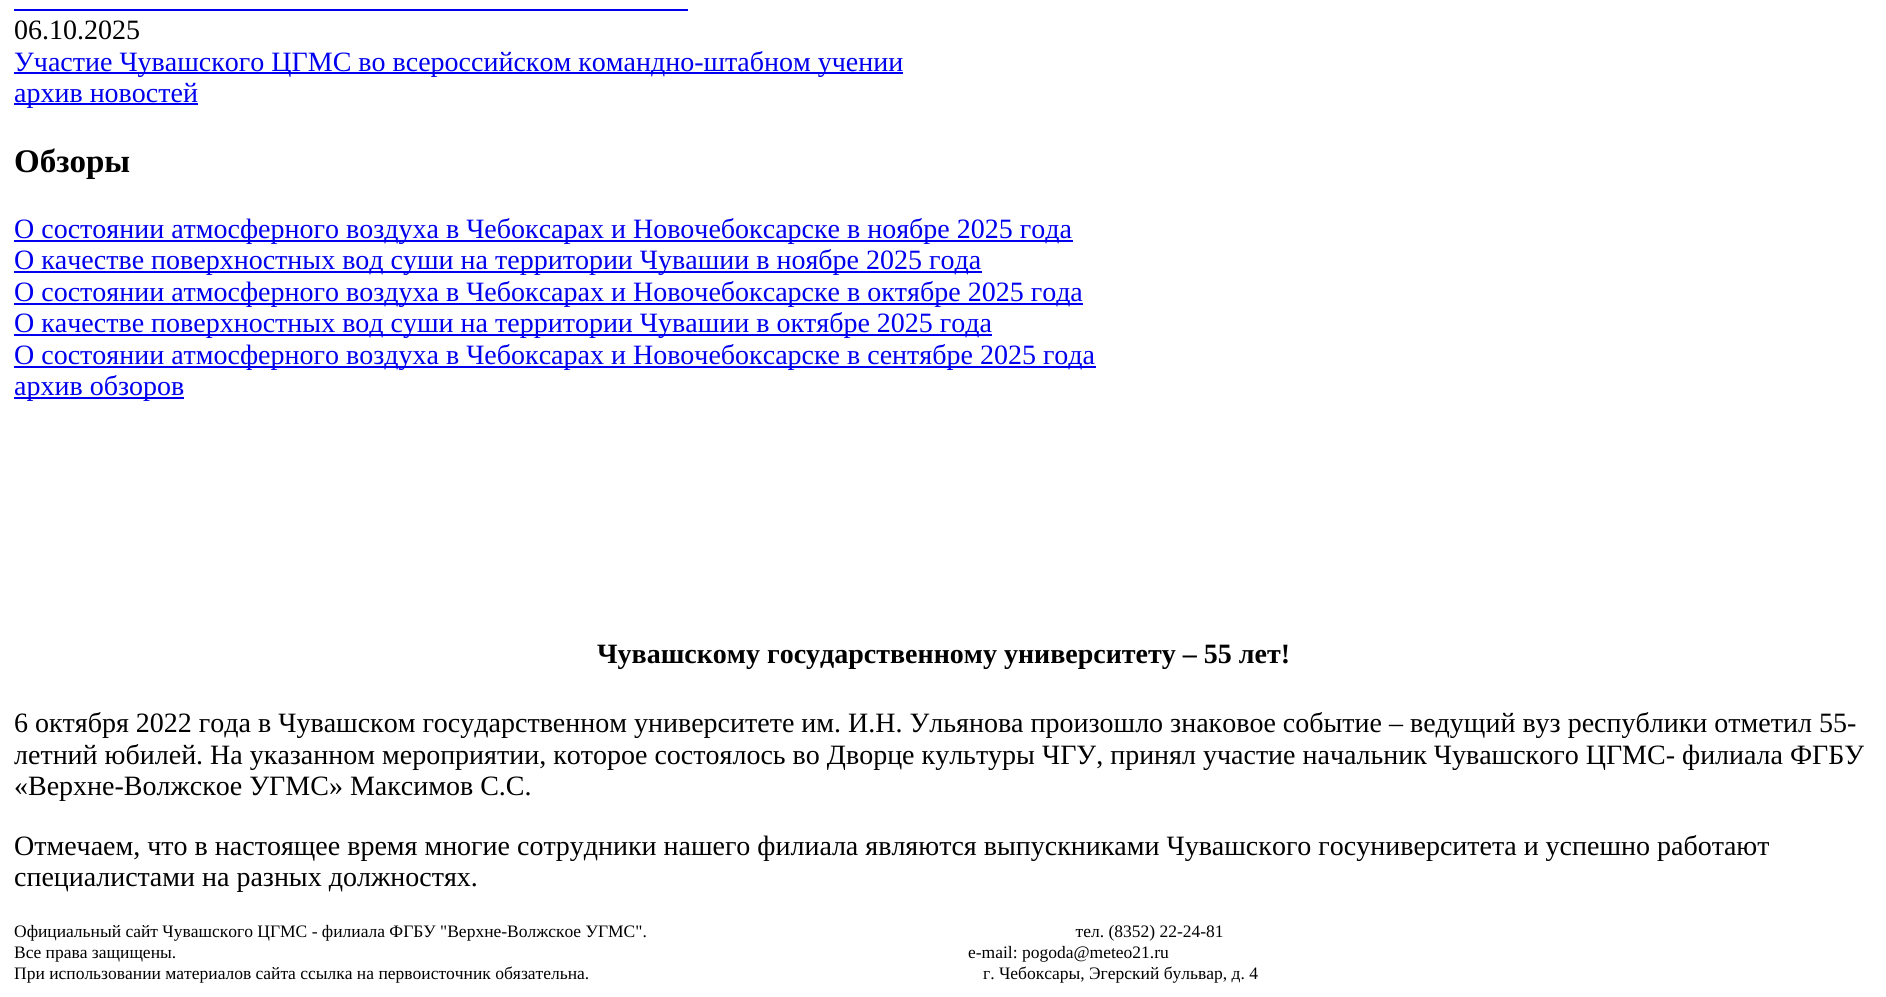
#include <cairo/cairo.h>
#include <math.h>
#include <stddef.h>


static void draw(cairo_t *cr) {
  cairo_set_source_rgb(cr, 1, 1, 1);
  cairo_paint(cr);
  cairo_set_source_rgb(cr, 0, 0, 238 / 255.0);
  cairo_rectangle(cr, 14, 9, 674, 2);
  cairo_fill(cr);
  cairo_rectangle(cr, 14, 72, 889, 2);
  cairo_fill(cr);
  cairo_rectangle(cr, 14, 103, 184, 2);
  cairo_fill(cr);
  cairo_rectangle(cr, 14, 240, 1059, 2);
  cairo_fill(cr);
  cairo_rectangle(cr, 14, 271, 968, 2);
  cairo_fill(cr);
  cairo_rectangle(cr, 14, 303, 1069, 2);
  cairo_fill(cr);
  cairo_rectangle(cr, 14, 334, 978, 2);
  cairo_fill(cr);
  cairo_rectangle(cr, 14, 366, 1082, 2);
  cairo_fill(cr);
  cairo_rectangle(cr, 14, 397, 170, 2);
  cairo_fill(cr);
  cairo_select_font_face(cr, "Liberation Serif", CAIRO_FONT_SLANT_NORMAL, CAIRO_FONT_WEIGHT_NORMAL);
  cairo_set_font_size(cr, 28);
  cairo_set_source_rgb(cr, 0, 0, 0);
  cairo_move_to(cr, 14, 39);
  cairo_show_text(cr, "06.10.2025");
  cairo_set_source_rgb(cr, 0, 0, 238 / 255.0);
  cairo_move_to(cr, 14, 71);
  cairo_show_text(cr, "Участие Чувашского ЦГМС во всероссийском командно-штабном учении");
  cairo_move_to(cr, 14, 102);
  cairo_show_text(cr, "архив новостей");
  cairo_select_font_face(cr, "Liberation Serif", CAIRO_FONT_SLANT_NORMAL, CAIRO_FONT_WEIGHT_BOLD);
  cairo_set_font_size(cr, 33);
  cairo_set_source_rgb(cr, 0, 0, 0);
  cairo_move_to(cr, 14, 172);
  cairo_show_text(cr, "Обзоры");
  cairo_select_font_face(cr, "Liberation Serif", CAIRO_FONT_SLANT_NORMAL, CAIRO_FONT_WEIGHT_NORMAL);
  cairo_set_font_size(cr, 28);
  cairo_set_source_rgb(cr, 0, 0, 238 / 255.0);
  cairo_move_to(cr, 14, 238);
  cairo_show_text(cr, "О состоянии атмосферного воздуха в Чебоксарах и Новочебоксарске в ноябре 2025 года");
  cairo_move_to(cr, 14, 269);
  cairo_show_text(cr, "О качестве поверхностных вод суши на территории Чувашии в ноябре 2025 года");
  cairo_move_to(cr, 14, 301);
  cairo_show_text(cr, "О состоянии атмосферного воздуха в Чебоксарах и Новочебоксарске в октябре 2025 года");
  cairo_move_to(cr, 14, 332);
  cairo_show_text(cr, "О качестве поверхностных вод суши на территории Чувашии в октябре 2025 года");
  cairo_move_to(cr, 14, 364);
  cairo_show_text(cr, "О состоянии атмосферного воздуха в Чебоксарах и Новочебоксарске в сентябре 2025 года");
  cairo_move_to(cr, 14, 395);
  cairo_show_text(cr, "архив обзоров");
  cairo_select_font_face(cr, "Liberation Serif", CAIRO_FONT_SLANT_NORMAL, CAIRO_FONT_WEIGHT_BOLD);
  cairo_set_source_rgb(cr, 0, 0, 0);
  cairo_move_to(cr, 597, 663);
  cairo_show_text(cr, "Чувашскому государственному университету – 55 лет!");
  cairo_select_font_face(cr, "Liberation Serif", CAIRO_FONT_SLANT_NORMAL, CAIRO_FONT_WEIGHT_NORMAL);
  cairo_move_to(cr, 14, 732);
  cairo_show_text(cr, "6 октября 2022 года в Чувашском государственном университете им. И.Н. Ульянова произошло знаковое событие – ведущий вуз республики отметил 55-");
  cairo_move_to(cr, 14, 764);
  cairo_show_text(cr, "летний юбилей. На указанном мероприятии, которое состоялось во Дворце культуры ЧГУ, принял участие начальник Чувашского ЦГМС- филиала ФГБУ");
  cairo_move_to(cr, 14, 795);
  cairo_show_text(cr, "«Верхне-Волжское УГМС» Максимов С.С.");
  cairo_move_to(cr, 14, 855);
  cairo_show_text(cr, "Отмечаем, что в настоящее время многие сотрудники нашего филиала являются выпускниками Чувашского госуниверситета и успешно работают");
  cairo_move_to(cr, 14, 886);
  cairo_show_text(cr, "специалистами на разных должностях.");
  cairo_set_font_size(cr, 17.5);
  cairo_move_to(cr, 14, 937);
  cairo_show_text(cr, "Официальный сайт Чувашского ЦГМС - филиала ФГБУ \"Верхне-Волжское УГМС\".                                                                                                  тел. (8352) 22-24-81");
  cairo_move_to(cr, 14, 958);
  cairo_show_text(cr, "Все права защищены.                                                                                                                                                                                     e-mail: pogoda@meteo21.ru");
  cairo_move_to(cr, 14, 979);
  cairo_show_text(cr, "При использовании материалов сайта ссылка на первоисточник обязательна.                                                                                          г. Чебоксары, Эгерский бульвар, д. 4");
}

int main(void) {
  cairo_surface_t *surface = cairo_image_surface_create(CAIRO_FORMAT_RGB24, 1886, 997);
  cairo_t *cr = cairo_create(surface);
  cairo_font_options_t *options = cairo_font_options_create();
  cairo_font_options_set_hint_metrics(options, CAIRO_HINT_METRICS_OFF);
  cairo_font_options_set_hint_style(options, CAIRO_HINT_STYLE_NONE);
  cairo_set_font_options(cr, options);
  cairo_set_miter_limit(cr, 4);
  draw(cr);
  cairo_surface_write_to_png(surface, "out.png");
  cairo_font_options_destroy(options);
  cairo_destroy(cr);
  cairo_surface_destroy(surface);
  return 0;
}
